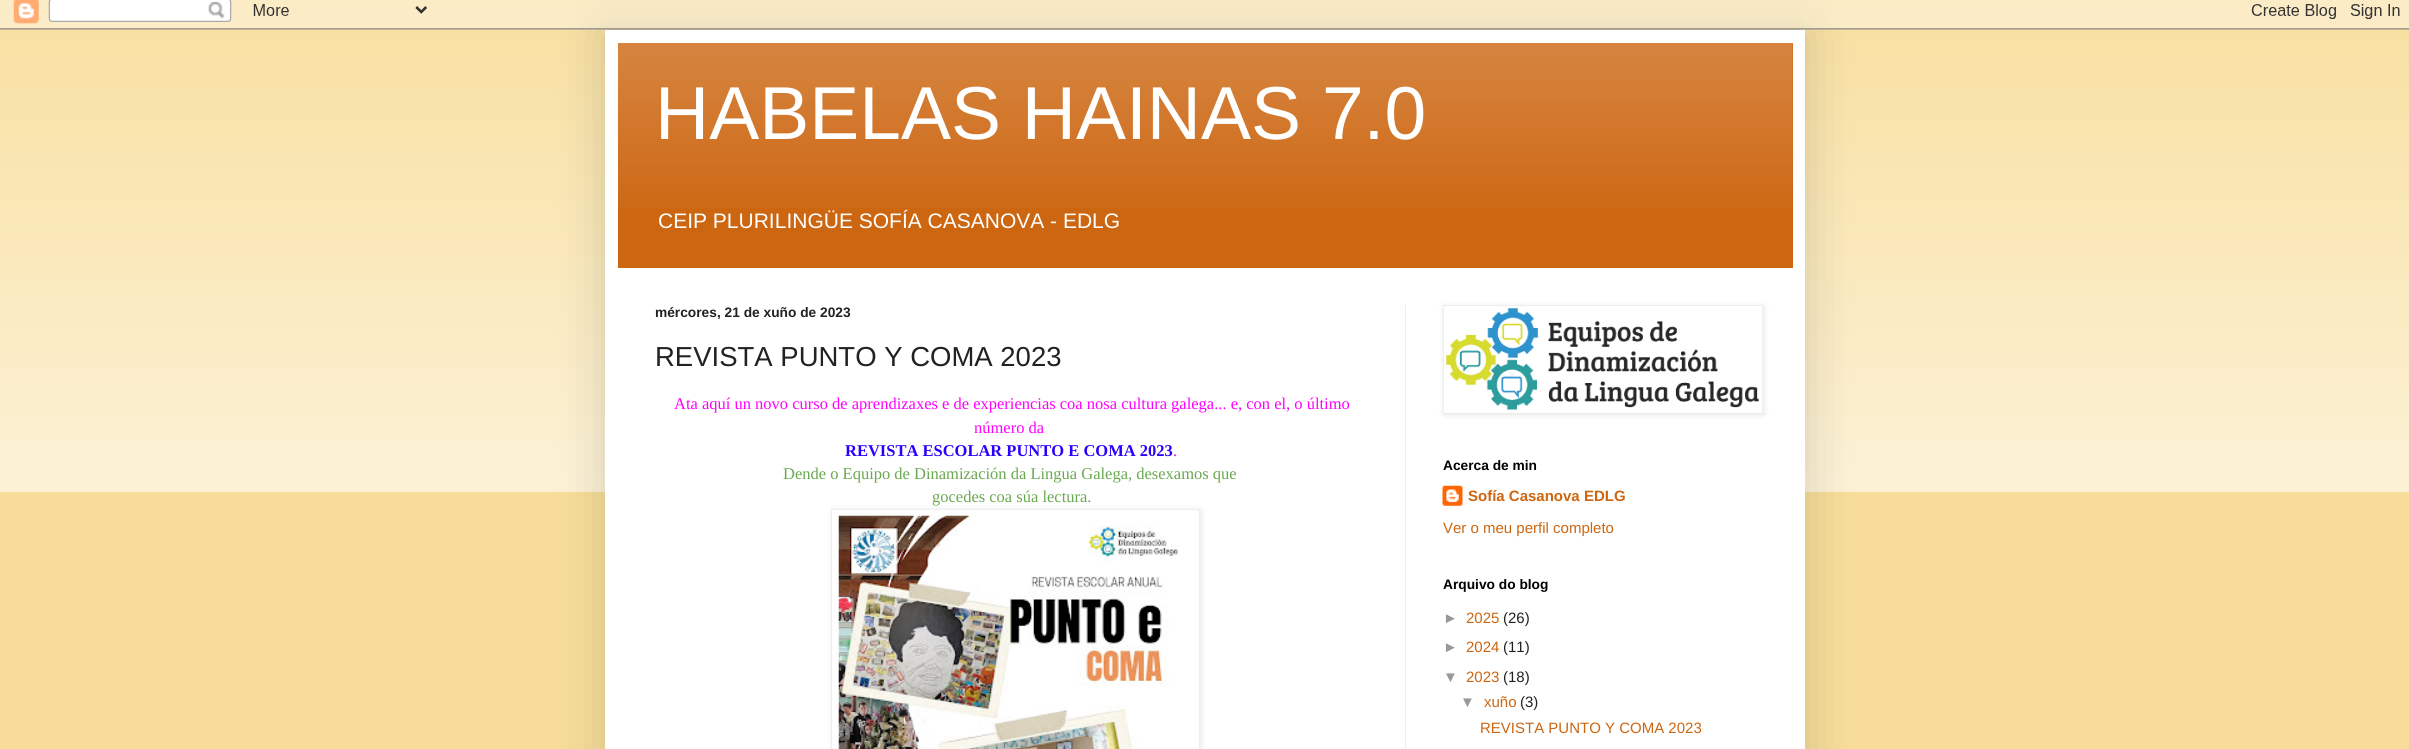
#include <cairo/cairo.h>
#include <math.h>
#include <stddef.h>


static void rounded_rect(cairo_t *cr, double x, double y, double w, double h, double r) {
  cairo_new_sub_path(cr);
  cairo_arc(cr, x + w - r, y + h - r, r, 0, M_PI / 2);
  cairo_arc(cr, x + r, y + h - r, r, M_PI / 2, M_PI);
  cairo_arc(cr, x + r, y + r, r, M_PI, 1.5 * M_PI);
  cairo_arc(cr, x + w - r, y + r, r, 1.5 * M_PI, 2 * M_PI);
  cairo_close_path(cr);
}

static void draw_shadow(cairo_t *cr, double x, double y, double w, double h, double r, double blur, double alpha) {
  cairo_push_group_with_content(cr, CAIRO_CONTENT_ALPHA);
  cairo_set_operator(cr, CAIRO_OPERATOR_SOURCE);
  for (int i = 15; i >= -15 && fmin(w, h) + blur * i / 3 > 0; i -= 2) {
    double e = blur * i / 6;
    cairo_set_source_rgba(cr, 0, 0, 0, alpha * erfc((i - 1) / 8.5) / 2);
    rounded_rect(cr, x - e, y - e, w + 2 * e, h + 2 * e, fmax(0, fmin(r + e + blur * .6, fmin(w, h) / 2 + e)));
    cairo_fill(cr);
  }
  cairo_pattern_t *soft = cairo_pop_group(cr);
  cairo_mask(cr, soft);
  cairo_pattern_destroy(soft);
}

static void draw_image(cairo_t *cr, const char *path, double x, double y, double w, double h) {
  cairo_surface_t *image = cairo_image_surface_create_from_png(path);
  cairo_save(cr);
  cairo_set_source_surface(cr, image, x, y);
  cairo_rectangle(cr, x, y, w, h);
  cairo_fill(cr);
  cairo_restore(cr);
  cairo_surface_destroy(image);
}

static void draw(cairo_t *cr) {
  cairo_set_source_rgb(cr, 247 / 255.0, 221 / 255.0, 153 / 255.0);
  cairo_paint(cr);
  draw_image(cr, "images/1.png", 0, 0, 2409, 492);
  cairo_set_source_rgb(cr, 0, 0, 0);
  draw_shadow(cr, 605, 30, 1200, 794, 0, 25, 0.15);
  draw_image(cr, "images/2.png", 0, 0, 2409, 30);
  cairo_set_source_rgb(cr, 1, 1, 1);
  cairo_rectangle(cr, 605, 30, 1200, 719);
  cairo_fill(cr);
  cairo_set_source_rgb(cr, 204 / 255.0, 102 / 255.0, 17 / 255.0);
  cairo_rectangle(cr, 618, 43, 1175, 225);
  cairo_fill(cr);
  draw_image(cr, "images/3.png", 618, 43, 1175, 165);
  cairo_set_source_rgb(cr, 238 / 255.0, 238 / 255.0, 238 / 255.0);
  cairo_rectangle(cr, 1405, 305, 1, 444);
  cairo_fill(cr);
  cairo_set_source_rgb(cr, 0, 0, 0);
  draw_shadow(cr, 833, 510, 368, 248, 0, 3, 0.1);
  cairo_set_source_rgb(cr, 1, 1, 1);
  cairo_rectangle(cr, 831.5, 509.5, 368, 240);
  cairo_fill_preserve(cr);
  cairo_set_source_rgb(cr, 238 / 255.0, 238 / 255.0, 238 / 255.0);
  cairo_set_line_width(cr, 1);
  cairo_stroke(cr);
  draw_image(cr, "images/4.png", 838, 515, 340, 234);
  cairo_set_source_rgb(cr, 0, 0, 0);
  draw_shadow(cr, 1444, 306, 320, 109, 0, 3, 0.1);
  cairo_set_source_rgb(cr, 1, 1, 1);
  cairo_rectangle(cr, 1443.5, 305.5, 319, 108);
  cairo_fill_preserve(cr);
  cairo_set_source_rgb(cr, 238 / 255.0, 238 / 255.0, 238 / 255.0);
  cairo_stroke(cr);
  draw_image(cr, "images/5.png", 1446, 308, 313, 102);
  draw_image(cr, "images/6.png", 1442, 485, 21, 21);
  cairo_select_font_face(cr, "Liberation Sans", CAIRO_FONT_SLANT_NORMAL, CAIRO_FONT_WEIGHT_NORMAL);
  cairo_set_font_size(cr, 75);
  cairo_set_source_rgb(cr, 1, 1, 1);
  cairo_move_to(cr, 655, 139);
  cairo_show_text(cr, "HABELAS HAINAS 7.0");
  cairo_set_font_size(cr, 21);
  cairo_move_to(cr, 658, 228);
  cairo_show_text(cr, "CEIP PLURILINGÜE SOFÍA CASANOVA - EDLG");
  cairo_select_font_face(cr, "Liberation Sans", CAIRO_FONT_SLANT_NORMAL, CAIRO_FONT_WEIGHT_BOLD);
  cairo_set_font_size(cr, 13.75);
  cairo_set_source_rgb(cr, 34 / 255.0, 34 / 255.0, 34 / 255.0);
  cairo_move_to(cr, 655, 317);
  cairo_show_text(cr, "mércores, 21 de xuño de 2023");
  cairo_select_font_face(cr, "Liberation Sans", CAIRO_FONT_SLANT_NORMAL, CAIRO_FONT_WEIGHT_NORMAL);
  cairo_set_font_size(cr, 27.5);
  cairo_move_to(cr, 655, 366);
  cairo_show_text(cr, "REVISTA PUNTO Y COMA 2023");
  cairo_select_font_face(cr, "Liberation Serif", CAIRO_FONT_SLANT_NORMAL, CAIRO_FONT_WEIGHT_NORMAL);
  cairo_set_font_size(cr, 16.5);
  cairo_set_source_rgb(cr, 1, 0, 254 / 255.0);
  cairo_move_to(cr, 674, 409);
  cairo_show_text(cr, "Ata aquí un novo curso de aprendizaxes e de experiencias coa nosa cultura galega... e, con el, o último");
  cairo_move_to(cr, 974, 433);
  cairo_show_text(cr, "número da");
  cairo_select_font_face(cr, "Liberation Serif", CAIRO_FONT_SLANT_NORMAL, CAIRO_FONT_WEIGHT_BOLD);
  cairo_set_source_rgb(cr, 43 / 255.0, 0, 254 / 255.0);
  cairo_move_to(cr, 845, 456);
  cairo_show_text(cr, "REVISTA ESCOLAR PUNTO E COMA 2023");
  cairo_select_font_face(cr, "Liberation Serif", CAIRO_FONT_SLANT_NORMAL, CAIRO_FONT_WEIGHT_NORMAL);
  cairo_set_source_rgb(cr, 1, 0, 254 / 255.0);
  cairo_move_to(cr, 1173, 456);
  cairo_show_text(cr, ".");
  cairo_set_source_rgb(cr, 106 / 255.0, 168 / 255.0, 79 / 255.0);
  cairo_move_to(cr, 783, 479);
  cairo_show_text(cr, "Dende o Equipo de Dinamización da Lingua Galega, desexamos que");
  cairo_move_to(cr, 932, 502);
  cairo_show_text(cr, "gocedes coa súa lectura.");
  cairo_select_font_face(cr, "Liberation Sans", CAIRO_FONT_SLANT_NORMAL, CAIRO_FONT_WEIGHT_BOLD);
  cairo_set_font_size(cr, 13.75);
  cairo_set_source_rgb(cr, 0, 0, 0);
  cairo_move_to(cr, 1443, 470);
  cairo_show_text(cr, "Acerca de min");
  cairo_set_font_size(cr, 15);
  cairo_set_source_rgb(cr, 204 / 255.0, 102 / 255.0, 17 / 255.0);
  cairo_move_to(cr, 1468, 501);
  cairo_show_text(cr, "Sofía Casanova EDLG");
  cairo_select_font_face(cr, "Liberation Sans", CAIRO_FONT_SLANT_NORMAL, CAIRO_FONT_WEIGHT_NORMAL);
  cairo_move_to(cr, 1443, 533);
  cairo_show_text(cr, "Ver o meu perfil completo");
  cairo_select_font_face(cr, "Liberation Sans", CAIRO_FONT_SLANT_NORMAL, CAIRO_FONT_WEIGHT_BOLD);
  cairo_set_font_size(cr, 13.75);
  cairo_set_source_rgb(cr, 0, 0, 0);
  cairo_move_to(cr, 1443, 589);
  cairo_show_text(cr, "Arquivo do blog");
  cairo_select_font_face(cr, "Liberation Sans", CAIRO_FONT_SLANT_NORMAL, CAIRO_FONT_WEIGHT_NORMAL);
  cairo_set_font_size(cr, 15);
  cairo_set_source_rgb(cr, 153 / 255.0, 153 / 255.0, 153 / 255.0);
  cairo_move_to(cr, 1443, 623);
  cairo_show_text(cr, "►");
  cairo_set_source_rgb(cr, 204 / 255.0, 102 / 255.0, 17 / 255.0);
  cairo_move_to(cr, 1466, 623);
  cairo_show_text(cr, "2025");
  cairo_set_source_rgb(cr, 34 / 255.0, 34 / 255.0, 34 / 255.0);
  cairo_move_to(cr, 1503, 623);
  cairo_show_text(cr, "(26)");
  cairo_set_source_rgb(cr, 153 / 255.0, 153 / 255.0, 153 / 255.0);
  cairo_move_to(cr, 1443, 652);
  cairo_show_text(cr, "►");
  cairo_set_source_rgb(cr, 204 / 255.0, 102 / 255.0, 17 / 255.0);
  cairo_move_to(cr, 1466, 652);
  cairo_show_text(cr, "2024");
  cairo_set_source_rgb(cr, 34 / 255.0, 34 / 255.0, 34 / 255.0);
  cairo_move_to(cr, 1503, 652);
  cairo_show_text(cr, "(11)");
  cairo_set_source_rgb(cr, 153 / 255.0, 153 / 255.0, 153 / 255.0);
  cairo_move_to(cr, 1443, 682);
  cairo_show_text(cr, "▼");
  cairo_set_source_rgb(cr, 204 / 255.0, 102 / 255.0, 17 / 255.0);
  cairo_move_to(cr, 1466, 682);
  cairo_show_text(cr, "2023");
  cairo_set_source_rgb(cr, 34 / 255.0, 34 / 255.0, 34 / 255.0);
  cairo_move_to(cr, 1503, 682);
  cairo_show_text(cr, "(18)");
  cairo_set_source_rgb(cr, 153 / 255.0, 153 / 255.0, 153 / 255.0);
  cairo_move_to(cr, 1460, 707);
  cairo_show_text(cr, "▼");
  cairo_set_source_rgb(cr, 204 / 255.0, 102 / 255.0, 17 / 255.0);
  cairo_move_to(cr, 1484, 707);
  cairo_show_text(cr, "xuño");
  cairo_set_source_rgb(cr, 34 / 255.0, 34 / 255.0, 34 / 255.0);
  cairo_move_to(cr, 1520, 707);
  cairo_show_text(cr, "(3)");
  cairo_set_source_rgb(cr, 204 / 255.0, 102 / 255.0, 17 / 255.0);
  cairo_move_to(cr, 1480, 733);
  cairo_show_text(cr, "REVISTA PUNTO Y COMA 2023");
}

int main(void) {
  cairo_surface_t *surface = cairo_image_surface_create(CAIRO_FORMAT_RGB24, 2409, 749);
  cairo_t *cr = cairo_create(surface);
  cairo_font_options_t *options = cairo_font_options_create();
  cairo_font_options_set_hint_metrics(options, CAIRO_HINT_METRICS_OFF);
  cairo_font_options_set_hint_style(options, CAIRO_HINT_STYLE_NONE);
  cairo_set_font_options(cr, options);
  cairo_set_miter_limit(cr, 4);
  draw(cr);
  cairo_surface_write_to_png(surface, "out.png");
  cairo_font_options_destroy(options);
  cairo_destroy(cr);
  cairo_surface_destroy(surface);
  return 0;
}
